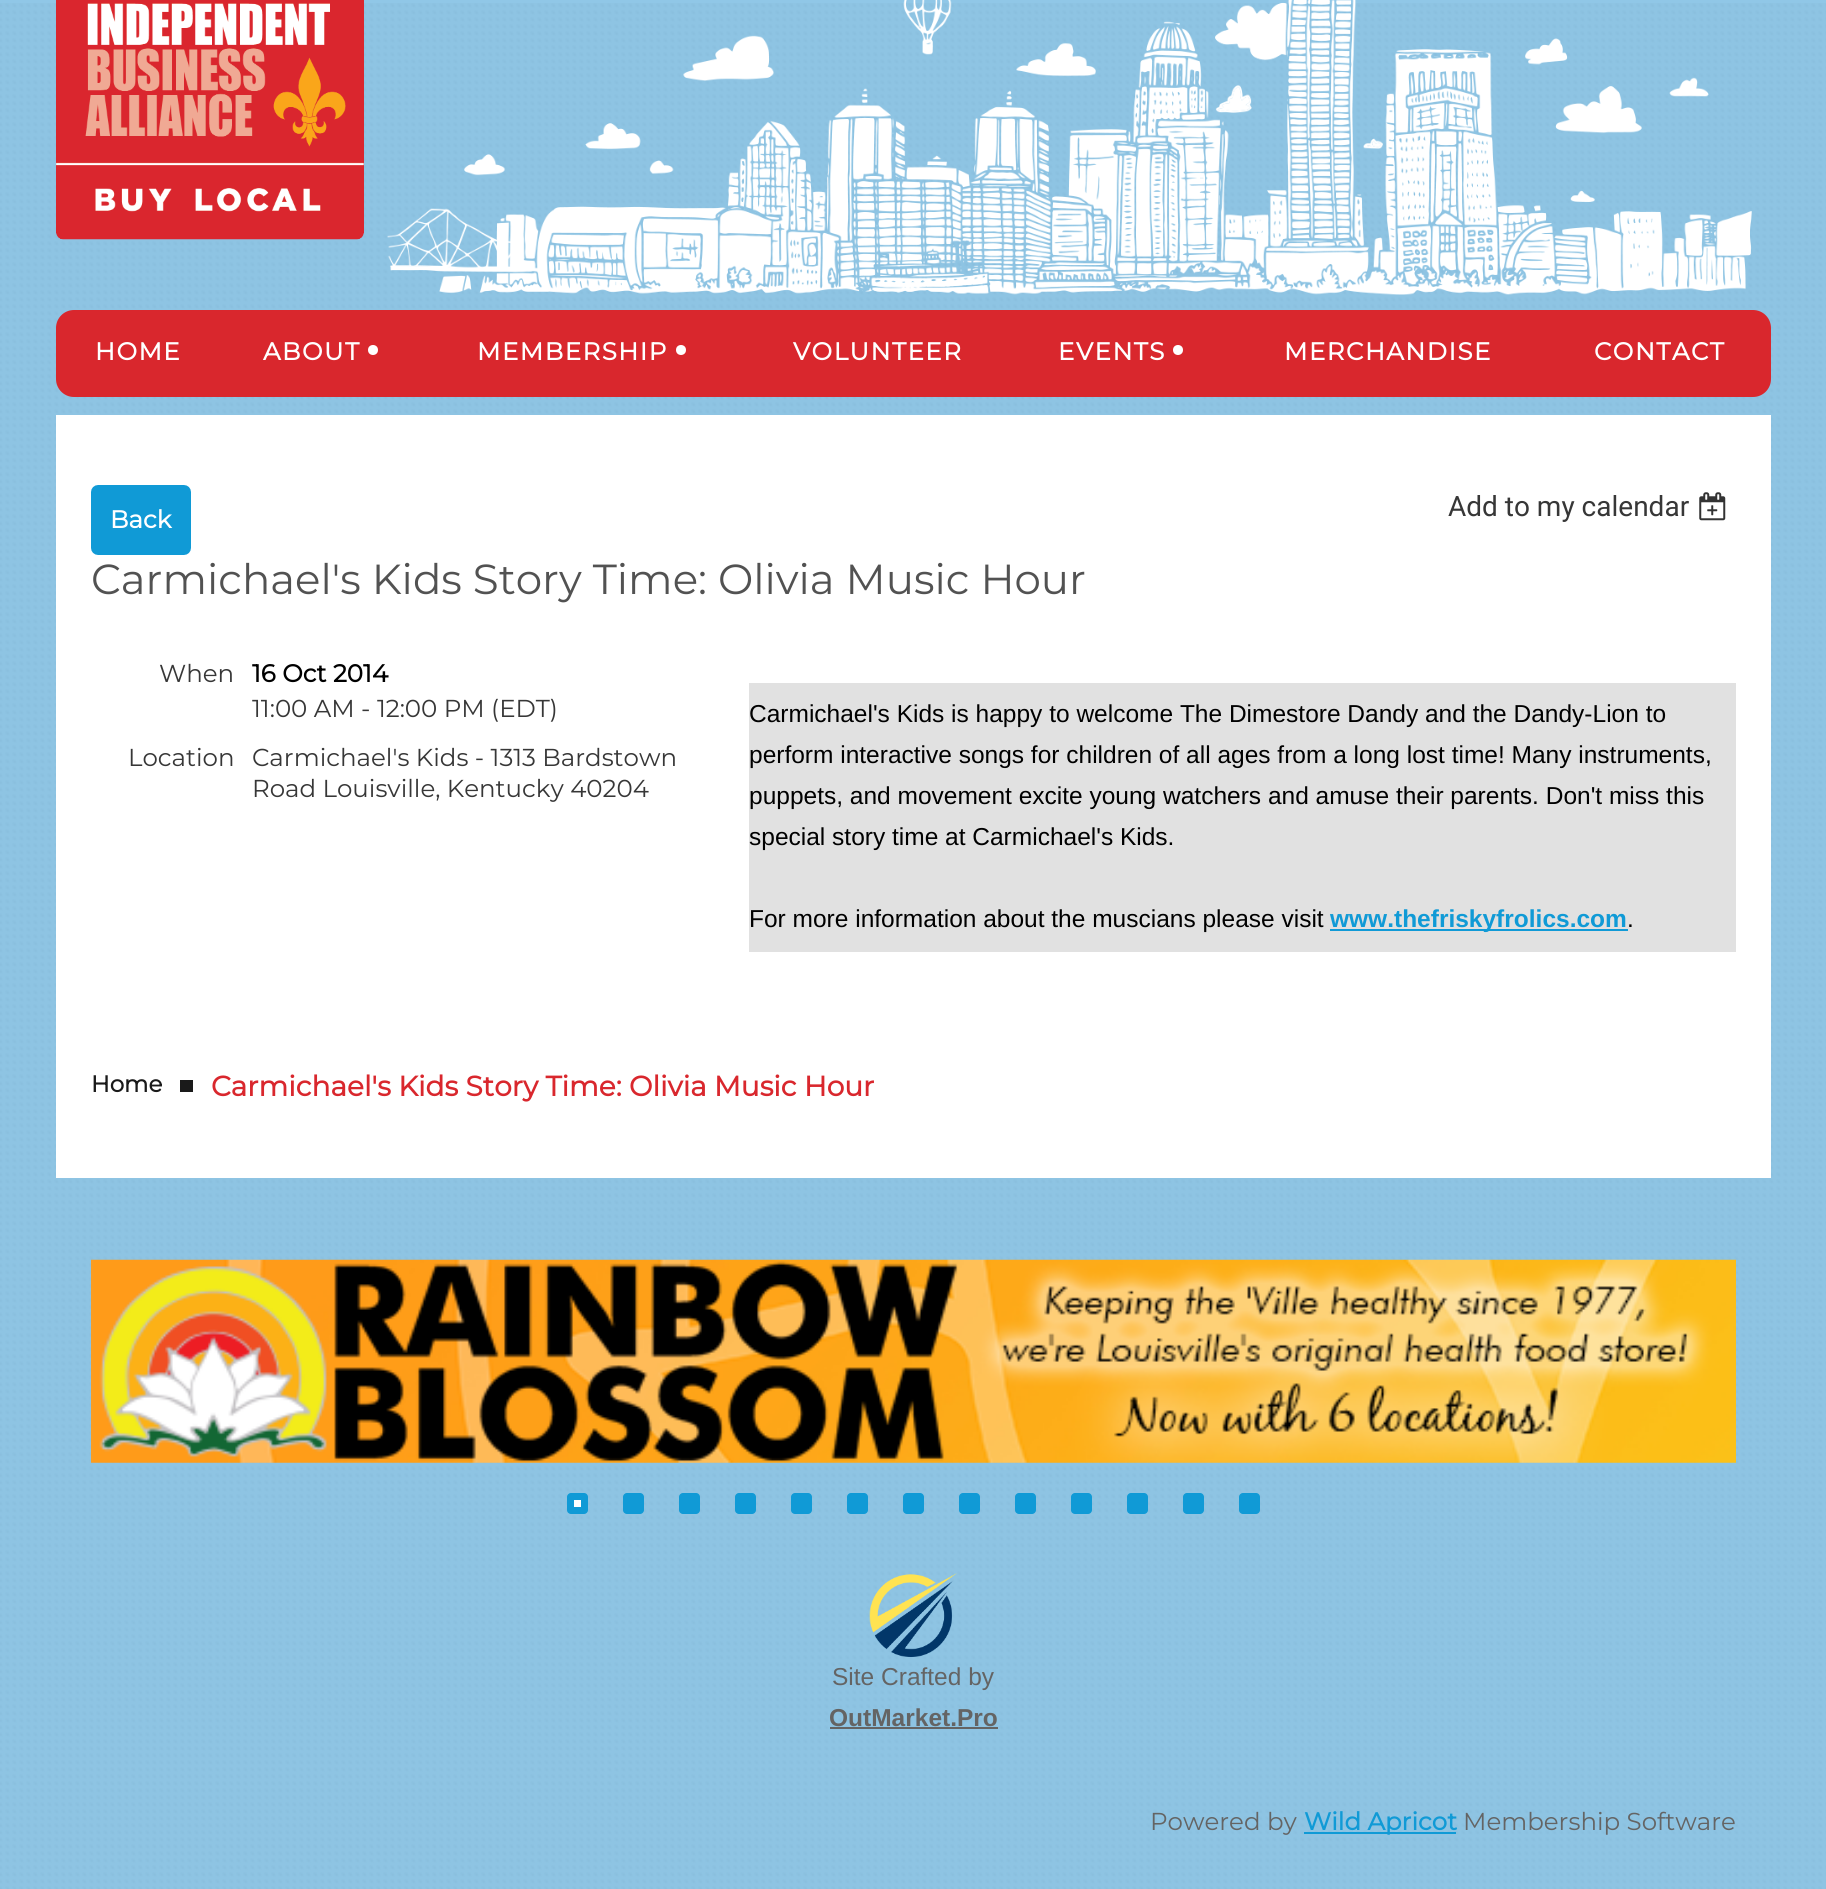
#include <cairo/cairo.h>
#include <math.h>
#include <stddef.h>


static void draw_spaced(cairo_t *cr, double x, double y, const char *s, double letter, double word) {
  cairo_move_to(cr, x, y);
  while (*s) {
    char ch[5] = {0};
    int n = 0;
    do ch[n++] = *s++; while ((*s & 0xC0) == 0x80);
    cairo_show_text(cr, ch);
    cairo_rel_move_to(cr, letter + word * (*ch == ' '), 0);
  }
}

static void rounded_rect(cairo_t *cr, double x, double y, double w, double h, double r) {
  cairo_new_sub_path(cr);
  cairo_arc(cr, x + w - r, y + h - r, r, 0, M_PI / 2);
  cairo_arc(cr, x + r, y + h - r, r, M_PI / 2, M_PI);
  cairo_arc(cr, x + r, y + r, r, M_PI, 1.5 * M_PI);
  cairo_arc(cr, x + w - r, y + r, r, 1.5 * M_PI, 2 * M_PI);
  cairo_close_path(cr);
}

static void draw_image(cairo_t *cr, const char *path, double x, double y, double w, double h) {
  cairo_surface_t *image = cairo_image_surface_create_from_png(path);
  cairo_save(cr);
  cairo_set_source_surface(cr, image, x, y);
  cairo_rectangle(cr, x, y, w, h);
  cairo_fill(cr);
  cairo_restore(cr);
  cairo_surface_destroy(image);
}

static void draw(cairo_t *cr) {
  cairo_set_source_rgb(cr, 144 / 255.0, 199 / 255.0, 231 / 255.0);
  cairo_paint(cr);
  draw_image(cr, "images/1.png", 0, 3, 1826, 1886);
  draw_image(cr, "images/2.png", 387, 0, 1365, 295);
  draw_image(cr, "images/3.png", 56, 0, 308, 240);
  cairo_set_source_rgb(cr, 217 / 255.0, 39 / 255.0, 45 / 255.0);
  rounded_rect(cr, 56, 310, 1715, 87, 18);
  cairo_fill(cr);
  cairo_set_source_rgb(cr, 1, 1, 1);
  cairo_arc(cr, 373, 350, 5, 0, 2 * M_PI);
  cairo_fill(cr);
  cairo_arc(cr, 681, 350, 5, 0, 2 * M_PI);
  cairo_fill(cr);
  cairo_arc(cr, 1178, 350, 5, 0, 2 * M_PI);
  cairo_fill(cr);
  cairo_rectangle(cr, 56, 415, 1715, 763);
  cairo_fill(cr);
  cairo_set_source_rgb(cr, 16 / 255.0, 154 / 255.0, 214 / 255.0);
  rounded_rect(cr, 94.5, 488.5, 93, 63, 3.5);
  cairo_fill_preserve(cr);
  cairo_set_line_width(cr, 7);
  cairo_stroke(cr);
  draw_image(cr, "images/4.png", 1699, 492, 27, 29);
  cairo_set_source_rgb(cr, 225 / 255.0, 225 / 255.0, 225 / 255.0);
  cairo_rectangle(cr, 749, 683, 987, 269);
  cairo_fill(cr);
  cairo_set_source_rgb(cr, 16 / 255.0, 154 / 255.0, 214 / 255.0);
  cairo_rectangle(cr, 1330, 929, 298, 2);
  cairo_fill(cr);
  cairo_set_source_rgb(cr, 26 / 255.0, 26 / 255.0, 26 / 255.0);
  cairo_rectangle(cr, 180, 1080, 13, 12);
  cairo_fill(cr);
  draw_image(cr, "images/5.png", 91, 1259, 1645, 204);
  cairo_set_source_rgb(cr, 16 / 255.0, 154 / 255.0, 214 / 255.0);
  rounded_rect(cr, 567, 1493, 21, 21, 4);
  cairo_fill(cr);
  cairo_set_source_rgb(cr, 1, 1, 1);
  cairo_rectangle(cr, 574, 1500, 7, 7);
  cairo_fill(cr);
  cairo_set_source_rgb(cr, 16 / 255.0, 154 / 255.0, 214 / 255.0);
  rounded_rect(cr, 623, 1493, 21, 21, 4);
  cairo_fill(cr);
  rounded_rect(cr, 679, 1493, 21, 21, 4);
  cairo_fill(cr);
  rounded_rect(cr, 735, 1493, 21, 21, 4);
  cairo_fill(cr);
  rounded_rect(cr, 791, 1493, 21, 21, 4);
  cairo_fill(cr);
  rounded_rect(cr, 847, 1493, 21, 21, 4);
  cairo_fill(cr);
  rounded_rect(cr, 903, 1493, 21, 21, 4);
  cairo_fill(cr);
  rounded_rect(cr, 959, 1493, 21, 21, 4);
  cairo_fill(cr);
  rounded_rect(cr, 1015, 1493, 21, 21, 4);
  cairo_fill(cr);
  rounded_rect(cr, 1071, 1493, 21, 21, 4);
  cairo_fill(cr);
  rounded_rect(cr, 1127, 1493, 21, 21, 4);
  cairo_fill(cr);
  rounded_rect(cr, 1183, 1493, 21, 21, 4);
  cairo_fill(cr);
  rounded_rect(cr, 1239, 1493, 21, 21, 4);
  cairo_fill(cr);
  draw_image(cr, "images/6.png", 869, 1573, 88, 84);
  cairo_set_source_rgb(cr, 100 / 255.0, 100 / 255.0, 100 / 255.0);
  cairo_rectangle(cr, 830, 1727, 168, 2);
  cairo_fill(cr);
  cairo_set_source_rgb(cr, 16 / 255.0, 154 / 255.0, 214 / 255.0);
  cairo_rectangle(cr, 1304, 1832, 152, 2);
  cairo_fill(cr);
  cairo_select_font_face(cr, "Montserrat", CAIRO_FONT_SLANT_NORMAL, CAIRO_FONT_WEIGHT_BOLD);
  cairo_set_font_size(cr, 24.5);
  cairo_set_source_rgb(cr, 1, 1, 1);
  draw_spaced(cr, 95, 360, "HOME", 1.5, 0);
  draw_spaced(cr, 263, 360, "ABOUT", 1.5, 0);
  draw_spaced(cr, 477, 360, "MEMBERSHIP", 1.5, 0);
  draw_spaced(cr, 793, 360, "VOLUNTEER", 1.5, 0);
  draw_spaced(cr, 1058, 360, "EVENTS", 1.5, 0);
  draw_spaced(cr, 1284, 360, "MERCHANDISE", 1.5, 0);
  draw_spaced(cr, 1594, 360, "CONTACT", 1.5, 0);
  cairo_move_to(cr, 110, 528);
  cairo_show_text(cr, "Back");
  cairo_select_font_face(cr, "Roboto", CAIRO_FONT_SLANT_NORMAL, CAIRO_FONT_WEIGHT_NORMAL);
  cairo_set_font_size(cr, 28);
  cairo_set_source_rgb(cr, 55 / 255.0, 55 / 255.0, 55 / 255.0);
  cairo_move_to(cr, 1448, 516);
  cairo_show_text(cr, "Add to my calendar");
  cairo_select_font_face(cr, "Montserrat Thin", CAIRO_FONT_SLANT_NORMAL, CAIRO_FONT_WEIGHT_NORMAL);
  cairo_set_font_size(cr, 42);
  cairo_set_source_rgb(cr, 82 / 255.0, 82 / 255.0, 82 / 255.0);
  cairo_move_to(cr, 91, 594);
  cairo_show_text(cr, "Carmichael's Kids Story Time: Olivia Music Hour");
  cairo_set_font_size(cr, 24.5);
  cairo_set_source_rgb(cr, 55 / 255.0, 55 / 255.0, 55 / 255.0);
  cairo_move_to(cr, 159, 682);
  cairo_show_text(cr, "When");
  cairo_select_font_face(cr, "Montserrat", CAIRO_FONT_SLANT_NORMAL, CAIRO_FONT_WEIGHT_BOLD);
  cairo_set_source_rgb(cr, 0, 0, 0);
  cairo_move_to(cr, 252, 682);
  cairo_show_text(cr, "16 Oct 2014");
  cairo_select_font_face(cr, "Montserrat Thin", CAIRO_FONT_SLANT_NORMAL, CAIRO_FONT_WEIGHT_NORMAL);
  cairo_set_source_rgb(cr, 55 / 255.0, 55 / 255.0, 55 / 255.0);
  cairo_move_to(cr, 252, 717);
  cairo_show_text(cr, "11:00 AM - 12:00 PM (EDT)");
  cairo_move_to(cr, 128, 766);
  cairo_show_text(cr, "Location");
  cairo_move_to(cr, 252, 766);
  cairo_show_text(cr, "Carmichael's Kids - 1313 Bardstown");
  cairo_move_to(cr, 252, 797);
  cairo_show_text(cr, "Road Louisville, Kentucky 40204");
  cairo_select_font_face(cr, "Liberation Sans", CAIRO_FONT_SLANT_NORMAL, CAIRO_FONT_WEIGHT_NORMAL);
  cairo_set_source_rgb(cr, 0, 0, 0);
  cairo_move_to(cr, 749, 722);
  cairo_show_text(cr, "Carmichael's Kids is happy to welcome The Dimestore Dandy and the Dandy-Lion to");
  cairo_move_to(cr, 749, 763);
  cairo_show_text(cr, "perform interactive songs for children of all ages from a long lost time! Many instruments,");
  cairo_move_to(cr, 749, 804);
  cairo_show_text(cr, "puppets, and movement excite young watchers and amuse their parents. Don't miss this");
  cairo_move_to(cr, 749, 845);
  cairo_show_text(cr, "special story time at Carmichael's Kids.");
  cairo_move_to(cr, 749, 927);
  cairo_show_text(cr, "For more information about the muscians please visit");
  cairo_select_font_face(cr, "Liberation Sans", CAIRO_FONT_SLANT_NORMAL, CAIRO_FONT_WEIGHT_BOLD);
  cairo_set_source_rgb(cr, 16 / 255.0, 154 / 255.0, 214 / 255.0);
  cairo_move_to(cr, 1330, 927);
  cairo_show_text(cr, "www.thefriskyfrolics.com");
  cairo_select_font_face(cr, "Liberation Sans", CAIRO_FONT_SLANT_NORMAL, CAIRO_FONT_WEIGHT_NORMAL);
  cairo_set_source_rgb(cr, 0, 0, 0);
  cairo_move_to(cr, 1627, 927);
  cairo_show_text(cr, ".");
  cairo_select_font_face(cr, "Montserrat", CAIRO_FONT_SLANT_NORMAL, CAIRO_FONT_WEIGHT_BOLD);
  cairo_set_font_size(cr, 23);
  cairo_set_source_rgb(cr, 26 / 255.0, 26 / 255.0, 26 / 255.0);
  cairo_move_to(cr, 91, 1092);
  cairo_show_text(cr, "Home");
  cairo_set_font_size(cr, 28);
  cairo_set_source_rgb(cr, 217 / 255.0, 39 / 255.0, 45 / 255.0);
  cairo_move_to(cr, 211, 1096);
  cairo_show_text(cr, "Carmichael's Kids Story Time: Olivia Music Hour");
  cairo_select_font_face(cr, "Liberation Sans", CAIRO_FONT_SLANT_NORMAL, CAIRO_FONT_WEIGHT_NORMAL);
  cairo_set_font_size(cr, 24.5);
  cairo_set_source_rgb(cr, 100 / 255.0, 100 / 255.0, 100 / 255.0);
  cairo_move_to(cr, 832, 1685);
  cairo_show_text(cr, "Site Crafted by");
  cairo_select_font_face(cr, "Liberation Sans", CAIRO_FONT_SLANT_NORMAL, CAIRO_FONT_WEIGHT_BOLD);
  cairo_move_to(cr, 829, 1726);
  cairo_show_text(cr, "OutMarket.Pro");
  cairo_select_font_face(cr, "Montserrat Thin", CAIRO_FONT_SLANT_NORMAL, CAIRO_FONT_WEIGHT_NORMAL);
  cairo_move_to(cr, 1150, 1830);
  cairo_show_text(cr, "Powered by");
  cairo_select_font_face(cr, "Montserrat", CAIRO_FONT_SLANT_NORMAL, CAIRO_FONT_WEIGHT_BOLD);
  cairo_set_source_rgb(cr, 16 / 255.0, 154 / 255.0, 214 / 255.0);
  cairo_move_to(cr, 1304, 1830);
  cairo_show_text(cr, "Wild Apricot");
  cairo_select_font_face(cr, "Montserrat Thin", CAIRO_FONT_SLANT_NORMAL, CAIRO_FONT_WEIGHT_NORMAL);
  cairo_set_source_rgb(cr, 100 / 255.0, 100 / 255.0, 100 / 255.0);
  cairo_move_to(cr, 1463, 1830);
  cairo_show_text(cr, "Membership Software");
}

int main(void) {
  cairo_surface_t *surface = cairo_image_surface_create(CAIRO_FORMAT_RGB24, 1826, 1889);
  cairo_t *cr = cairo_create(surface);
  cairo_font_options_t *options = cairo_font_options_create();
  cairo_font_options_set_hint_metrics(options, CAIRO_HINT_METRICS_OFF);
  cairo_font_options_set_hint_style(options, CAIRO_HINT_STYLE_NONE);
  cairo_set_font_options(cr, options);
  cairo_set_miter_limit(cr, 4);
  draw(cr);
  cairo_surface_write_to_png(surface, "out.png");
  cairo_font_options_destroy(options);
  cairo_destroy(cr);
  cairo_surface_destroy(surface);
  return 0;
}
